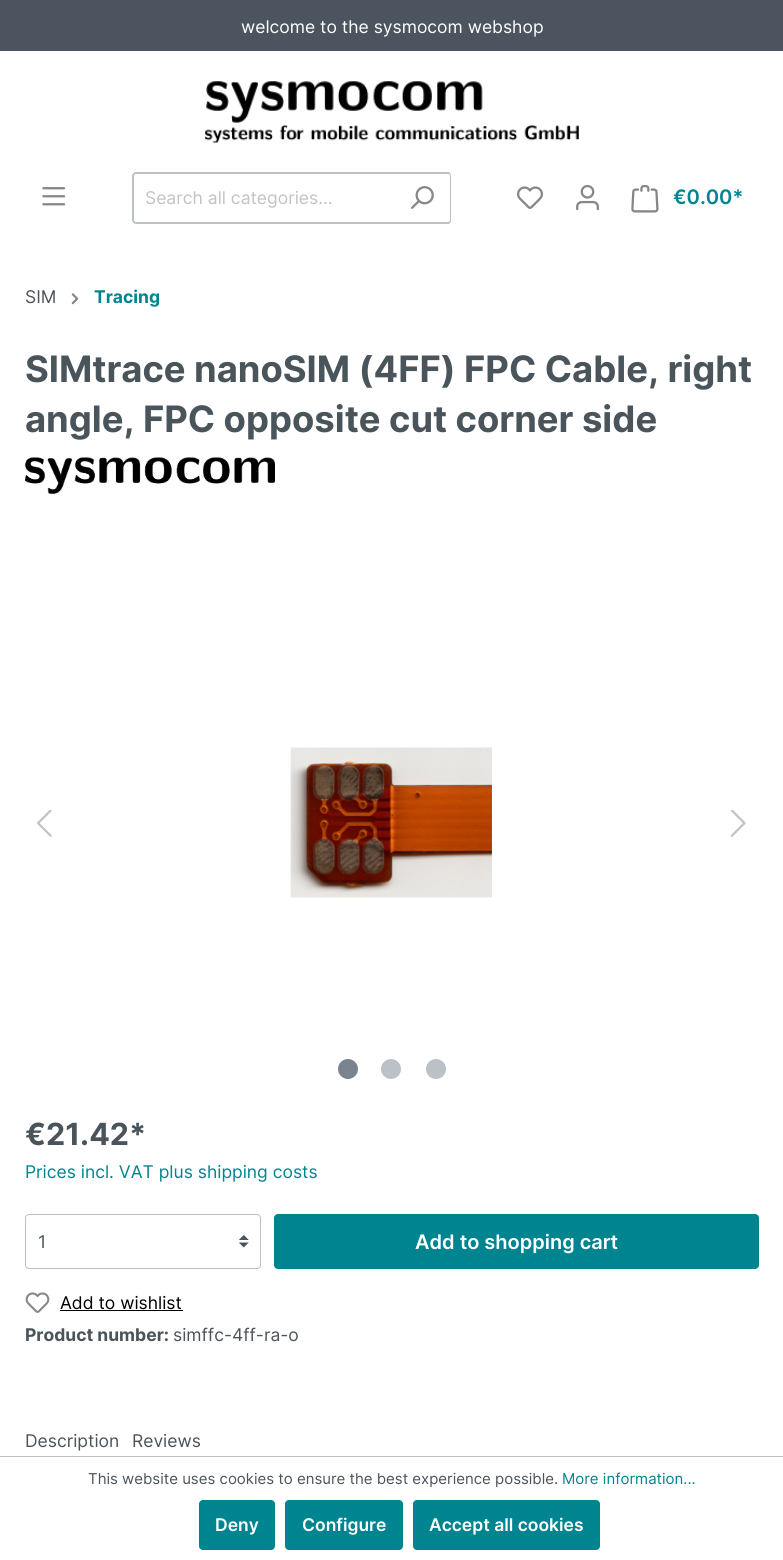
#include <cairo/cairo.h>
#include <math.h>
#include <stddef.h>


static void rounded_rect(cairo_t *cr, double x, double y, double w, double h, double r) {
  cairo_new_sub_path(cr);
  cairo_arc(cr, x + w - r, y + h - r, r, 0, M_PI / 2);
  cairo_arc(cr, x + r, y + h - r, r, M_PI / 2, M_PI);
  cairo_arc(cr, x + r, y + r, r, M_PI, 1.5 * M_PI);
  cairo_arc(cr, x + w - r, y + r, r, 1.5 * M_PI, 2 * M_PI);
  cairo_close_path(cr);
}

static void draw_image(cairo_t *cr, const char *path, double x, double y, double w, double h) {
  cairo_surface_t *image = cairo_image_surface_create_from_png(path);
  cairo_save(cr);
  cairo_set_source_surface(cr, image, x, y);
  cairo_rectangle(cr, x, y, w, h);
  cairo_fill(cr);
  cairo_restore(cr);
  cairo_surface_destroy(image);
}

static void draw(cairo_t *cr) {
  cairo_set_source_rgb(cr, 1, 1, 1);
  cairo_paint(cr);
  cairo_set_source_rgb(cr, 76 / 255.0, 84 / 255.0, 95 / 255.0);
  cairo_rectangle(cr, 0, 0, 783, 51);
  cairo_fill(cr);
  draw_image(cr, "images/1.png", 205, 81, 374, 62);
  draw_image(cr, "images/2.png", 42, 187, 24, 19);
  cairo_set_source_rgb(cr, 188 / 255.0, 193 / 255.0, 199 / 255.0);
  cairo_set_fill_rule(cr, CAIRO_FILL_RULE_EVEN_ODD);
  cairo_new_path(cr);
  cairo_move_to(cr, 136, 172);
  cairo_line_to(cr, 394, 172);
  cairo_line_to(cr, 394, 224);
  cairo_line_to(cr, 136, 224);
  cairo_curve_to(cr, 134, 224, 132, 222, 132, 220);
  cairo_line_to(cr, 132, 176);
  cairo_curve_to(cr, 132, 174, 134, 172, 136, 172);
  cairo_close_path(cr);
  cairo_move_to(cr, 136, 174);
  cairo_line_to(cr, 394, 174);
  cairo_line_to(cr, 394, 222);
  cairo_line_to(cr, 136, 222);
  cairo_curve_to(cr, 135, 222, 134, 221, 134, 220);
  cairo_line_to(cr, 134, 176);
  cairo_curve_to(cr, 134, 175, 135, 174, 136, 174);
  cairo_close_path(cr);
  cairo_fill(cr);
  cairo_set_source_rgb(cr, 1, 1, 1);
  cairo_new_path(cr);
  cairo_move_to(cr, 393, 173);
  cairo_line_to(cr, 447, 173);
  cairo_curve_to(cr, 449, 173, 451, 175, 451, 177);
  cairo_line_to(cr, 451, 220);
  cairo_curve_to(cr, 451, 222, 449, 224, 447, 224);
  cairo_line_to(cr, 393, 224);
  cairo_close_path(cr);
  cairo_fill(cr);
  cairo_set_source_rgb(cr, 188 / 255.0, 193 / 255.0, 199 / 255.0);
  cairo_new_path(cr);
  cairo_move_to(cr, 392, 172);
  cairo_line_to(cr, 448, 172);
  cairo_curve_to(cr, 450, 172, 451, 174, 451, 176);
  cairo_line_to(cr, 451, 220);
  cairo_curve_to(cr, 451, 222, 450, 224, 448, 224);
  cairo_line_to(cr, 392, 224);
  cairo_close_path(cr);
  cairo_move_to(cr, 392, 174);
  cairo_line_to(cr, 448, 174);
  cairo_curve_to(cr, 449, 174, 450, 175, 450, 176);
  cairo_line_to(cr, 450, 220);
  cairo_curve_to(cr, 450, 221, 449, 222, 448, 222);
  cairo_line_to(cr, 392, 222);
  cairo_close_path(cr);
  cairo_fill(cr);
  draw_image(cr, "images/3.png", 411, 186, 23, 23);
  draw_image(cr, "images/4.png", 517, 186, 26, 23);
  draw_image(cr, "images/5.png", 576, 184, 23, 27);
  draw_image(cr, "images/6.png", 631, 185, 28, 28);
  draw_image(cr, "images/7.png", 71, 293, 8, 12);
  draw_image(cr, "images/8.png", 25, 457, 250, 37);
  draw_image(cr, "images/9.png", 290, 747, 202, 151);
  draw_image(cr, "images/10.png", 37, 810, 15, 27);
  draw_image(cr, "images/11.png", 730, 810, 16, 27);
  cairo_set_source_rgb(cr, 121 / 255.0, 132 / 255.0, 144 / 255.0);
  cairo_arc(cr, 348, 1069, 10, 0, 2 * M_PI);
  cairo_fill(cr);
  cairo_set_source_rgb(cr, 188 / 255.0, 193 / 255.0, 199 / 255.0);
  cairo_arc(cr, 391, 1069, 10, 0, 2 * M_PI);
  cairo_fill(cr);
  cairo_arc(cr, 436, 1069, 10, 0, 2 * M_PI);
  cairo_fill(cr);
  draw_image(cr, "images/12.png", 239, 1235, 10, 13);
  rounded_rect(cr, 25.5, 1214.5, 235, 54, 3.5);
  cairo_set_line_width(cr, 1);
  cairo_stroke(cr);
  cairo_set_source_rgb(cr, 0, 132 / 255.0, 144 / 255.0);
  rounded_rect(cr, 274.5, 1214.5, 484, 54, 3.5);
  cairo_fill_preserve(cr);
  cairo_stroke(cr);
  draw_image(cr, "images/13.png", 25, 1292, 25, 21);
  cairo_set_source_rgb(cr, 0, 0, 0);
  cairo_rectangle(cr, 60, 1310, 123, 1);
  cairo_fill(cr);
  cairo_set_source_rgb(cr, 188 / 255.0, 193 / 255.0, 199 / 255.0);
  cairo_rectangle(cr, 0, 1456, 783, 1);
  cairo_fill(cr);
  cairo_set_source_rgb(cr, 0, 132 / 255.0, 144 / 255.0);
  rounded_rect(cr, 199.5, 1500.5, 75, 49, 3.5);
  cairo_fill_preserve(cr);
  cairo_stroke(cr);
  rounded_rect(cr, 285.5, 1500.5, 117, 49, 3.5);
  cairo_fill_preserve(cr);
  cairo_stroke(cr);
  rounded_rect(cr, 413.5, 1500.5, 186, 49, 3.5);
  cairo_fill_preserve(cr);
  cairo_stroke(cr);
  cairo_select_font_face(cr, "Inter", CAIRO_FONT_SLANT_NORMAL, CAIRO_FONT_WEIGHT_NORMAL);
  cairo_set_font_size(cr, 17.5);
  cairo_set_source_rgb(cr, 1, 1, 1);
  cairo_move_to(cr, 241, 33);
  cairo_show_text(cr, "welcome to the sysmocom webshop");
  cairo_set_source_rgb(cr, 195 / 255.0, 195 / 255.0, 195 / 255.0);
  cairo_move_to(cr, 145, 204);
  cairo_show_text(cr, "Search all categories...");
  cairo_select_font_face(cr, "Inter SemiBold", CAIRO_FONT_SLANT_NORMAL, CAIRO_FONT_WEIGHT_NORMAL);
  cairo_set_font_size(cr, 20);
  cairo_set_source_rgb(cr, 0, 132 / 255.0, 144 / 255.0);
  cairo_move_to(cr, 673, 204);
  cairo_show_text(cr, "€0.00*");
  cairo_select_font_face(cr, "Inter", CAIRO_FONT_SLANT_NORMAL, CAIRO_FONT_WEIGHT_NORMAL);
  cairo_set_font_size(cr, 17.5);
  cairo_set_source_rgb(cr, 74 / 255.0, 84 / 255.0, 91 / 255.0);
  cairo_move_to(cr, 25, 303);
  cairo_show_text(cr, "SIM");
  cairo_select_font_face(cr, "Inter", CAIRO_FONT_SLANT_NORMAL, CAIRO_FONT_WEIGHT_BOLD);
  cairo_set_source_rgb(cr, 0, 132 / 255.0, 144 / 255.0);
  cairo_move_to(cr, 94, 303);
  cairo_show_text(cr, "Tracing");
  cairo_set_font_size(cr, 36.4);
  cairo_set_source_rgb(cr, 74 / 255.0, 84 / 255.0, 91 / 255.0);
  cairo_move_to(cr, 25, 382);
  cairo_show_text(cr, "SIMtrace nanoSIM (4FF) FPC Cable, right");
  cairo_move_to(cr, 25, 432);
  cairo_show_text(cr, "angle, FPC opposite cut corner side");
  cairo_set_font_size(cr, 30.5);
  cairo_move_to(cr, 25, 1145);
  cairo_show_text(cr, "€21.42*");
  cairo_select_font_face(cr, "Inter", CAIRO_FONT_SLANT_NORMAL, CAIRO_FONT_WEIGHT_NORMAL);
  cairo_set_font_size(cr, 17.5);
  cairo_set_source_rgb(cr, 0, 132 / 255.0, 144 / 255.0);
  cairo_move_to(cr, 25, 1178);
  cairo_show_text(cr, "Prices incl. VAT plus shipping costs");
  cairo_set_source_rgb(cr, 74 / 255.0, 84 / 255.0, 91 / 255.0);
  cairo_move_to(cr, 38, 1248);
  cairo_show_text(cr, "1");
  cairo_select_font_face(cr, "Inter SemiBold", CAIRO_FONT_SLANT_NORMAL, CAIRO_FONT_WEIGHT_NORMAL);
  cairo_set_font_size(cr, 20);
  cairo_set_source_rgb(cr, 1, 1, 1);
  cairo_move_to(cr, 415, 1249);
  cairo_show_text(cr, "Add to shopping cart");
  cairo_select_font_face(cr, "Inter", CAIRO_FONT_SLANT_NORMAL, CAIRO_FONT_WEIGHT_NORMAL);
  cairo_set_font_size(cr, 17.5);
  cairo_set_source_rgb(cr, 0, 0, 0);
  cairo_move_to(cr, 60, 1309);
  cairo_show_text(cr, "Add to wishlist");
  cairo_select_font_face(cr, "Inter", CAIRO_FONT_SLANT_NORMAL, CAIRO_FONT_WEIGHT_BOLD);
  cairo_set_source_rgb(cr, 74 / 255.0, 84 / 255.0, 91 / 255.0);
  cairo_move_to(cr, 25, 1341);
  cairo_show_text(cr, "Product number:");
  cairo_select_font_face(cr, "Inter", CAIRO_FONT_SLANT_NORMAL, CAIRO_FONT_WEIGHT_NORMAL);
  cairo_move_to(cr, 173, 1341);
  cairo_show_text(cr, "simffc-4ff-ra-o");
  cairo_move_to(cr, 25, 1447);
  cairo_show_text(cr, "Description");
  cairo_move_to(cr, 132, 1447);
  cairo_show_text(cr, "Reviews");
  cairo_set_font_size(cr, 15);
  cairo_move_to(cr, 88, 1484);
  cairo_show_text(cr, "This website uses cookies to ensure the best experience possible.");
  cairo_set_source_rgb(cr, 0, 132 / 255.0, 144 / 255.0);
  cairo_move_to(cr, 562, 1484);
  cairo_show_text(cr, "More information...");
  cairo_select_font_face(cr, "Inter SemiBold", CAIRO_FONT_SLANT_NORMAL, CAIRO_FONT_WEIGHT_NORMAL);
  cairo_set_font_size(cr, 17.5);
  cairo_set_source_rgb(cr, 1, 1, 1);
  cairo_move_to(cr, 215, 1531);
  cairo_show_text(cr, "Deny");
  cairo_move_to(cr, 302, 1531);
  cairo_show_text(cr, "Configure");
  cairo_move_to(cr, 429, 1531);
  cairo_show_text(cr, "Accept all cookies");
}

int main(void) {
  cairo_surface_t *surface = cairo_image_surface_create(CAIRO_FORMAT_RGB24, 783, 1560);
  cairo_t *cr = cairo_create(surface);
  cairo_font_options_t *options = cairo_font_options_create();
  cairo_font_options_set_hint_metrics(options, CAIRO_HINT_METRICS_OFF);
  cairo_font_options_set_hint_style(options, CAIRO_HINT_STYLE_NONE);
  cairo_set_font_options(cr, options);
  cairo_set_miter_limit(cr, 4);
  draw(cr);
  cairo_surface_write_to_png(surface, "out.png");
  cairo_font_options_destroy(options);
  cairo_destroy(cr);
  cairo_surface_destroy(surface);
  return 0;
}
